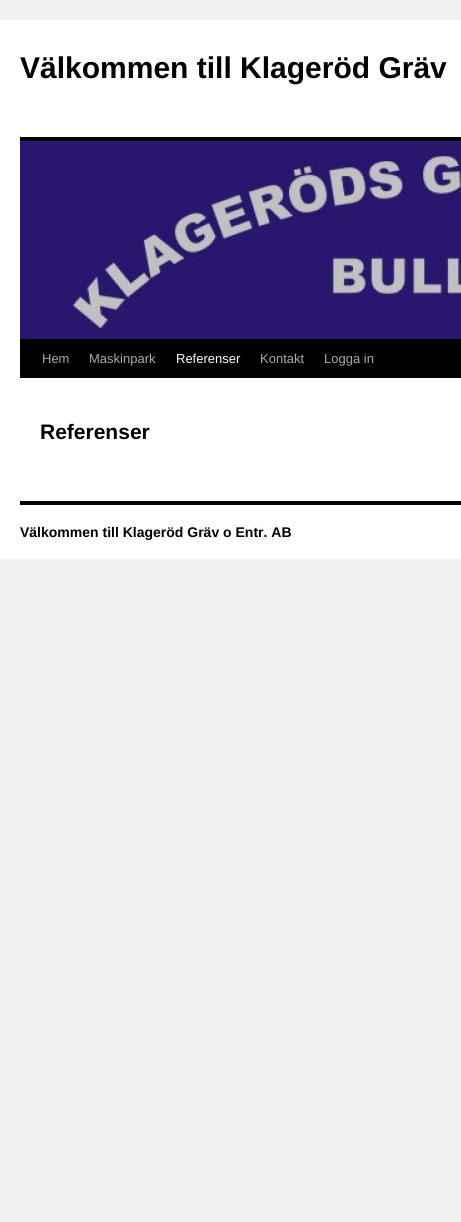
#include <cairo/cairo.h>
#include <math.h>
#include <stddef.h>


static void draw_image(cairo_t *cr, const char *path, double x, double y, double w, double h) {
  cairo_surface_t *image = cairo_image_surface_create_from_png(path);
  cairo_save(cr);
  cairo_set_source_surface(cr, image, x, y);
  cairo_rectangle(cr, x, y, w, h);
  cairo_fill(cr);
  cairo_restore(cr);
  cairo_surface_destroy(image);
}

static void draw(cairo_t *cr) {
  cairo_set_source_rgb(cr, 241 / 255.0, 241 / 255.0, 241 / 255.0);
  cairo_paint(cr);
  cairo_set_source_rgb(cr, 1, 1, 1);
  cairo_rectangle(cr, 0, 20, 461, 539);
  cairo_fill(cr);
  cairo_set_source_rgb(cr, 0, 0, 0);
  cairo_rectangle(cr, 20, 137, 441, 4);
  cairo_fill(cr);
  cairo_rectangle(cr, 20, 339, 441, 39);
  cairo_fill(cr);
  draw_image(cr, "images/1.png", 20, 141, 441, 198);
  cairo_rectangle(cr, 20, 501, 441, 4);
  cairo_fill(cr);
  cairo_select_font_face(cr, "Liberation Sans", CAIRO_FONT_SLANT_NORMAL, CAIRO_FONT_WEIGHT_BOLD);
  cairo_set_font_size(cr, 30);
  cairo_move_to(cr, 20, 78);
  cairo_show_text(cr, "Välkommen till Klageröd Gräv");
  cairo_select_font_face(cr, "Liberation Sans", CAIRO_FONT_SLANT_NORMAL, CAIRO_FONT_WEIGHT_NORMAL);
  cairo_set_font_size(cr, 13);
  cairo_set_source_rgb(cr, 170 / 255.0, 170 / 255.0, 170 / 255.0);
  cairo_move_to(cr, 42, 363);
  cairo_show_text(cr, "Hem");
  cairo_move_to(cr, 89, 363);
  cairo_show_text(cr, "Maskinpark");
  cairo_set_source_rgb(cr, 1, 1, 1);
  cairo_move_to(cr, 176, 363);
  cairo_show_text(cr, "Referenser");
  cairo_set_source_rgb(cr, 170 / 255.0, 170 / 255.0, 170 / 255.0);
  cairo_move_to(cr, 260, 363);
  cairo_show_text(cr, "Kontakt");
  cairo_move_to(cr, 324, 363);
  cairo_show_text(cr, "Logga in");
  cairo_select_font_face(cr, "Liberation Sans", CAIRO_FONT_SLANT_NORMAL, CAIRO_FONT_WEIGHT_BOLD);
  cairo_set_font_size(cr, 21);
  cairo_set_source_rgb(cr, 0, 0, 0);
  cairo_move_to(cr, 40, 439);
  cairo_show_text(cr, "Referenser");
  cairo_set_font_size(cr, 14);
  cairo_move_to(cr, 20, 537);
  cairo_show_text(cr, "Välkommen till Klageröd Gräv o Entr. AB");
}

int main(void) {
  cairo_surface_t *surface = cairo_image_surface_create(CAIRO_FORMAT_RGB24, 461, 1222);
  cairo_t *cr = cairo_create(surface);
  cairo_font_options_t *options = cairo_font_options_create();
  cairo_font_options_set_hint_metrics(options, CAIRO_HINT_METRICS_OFF);
  cairo_font_options_set_hint_style(options, CAIRO_HINT_STYLE_NONE);
  cairo_set_font_options(cr, options);
  cairo_set_miter_limit(cr, 4);
  draw(cr);
  cairo_surface_write_to_png(surface, "out.png");
  cairo_font_options_destroy(options);
  cairo_destroy(cr);
  cairo_surface_destroy(surface);
  return 0;
}
